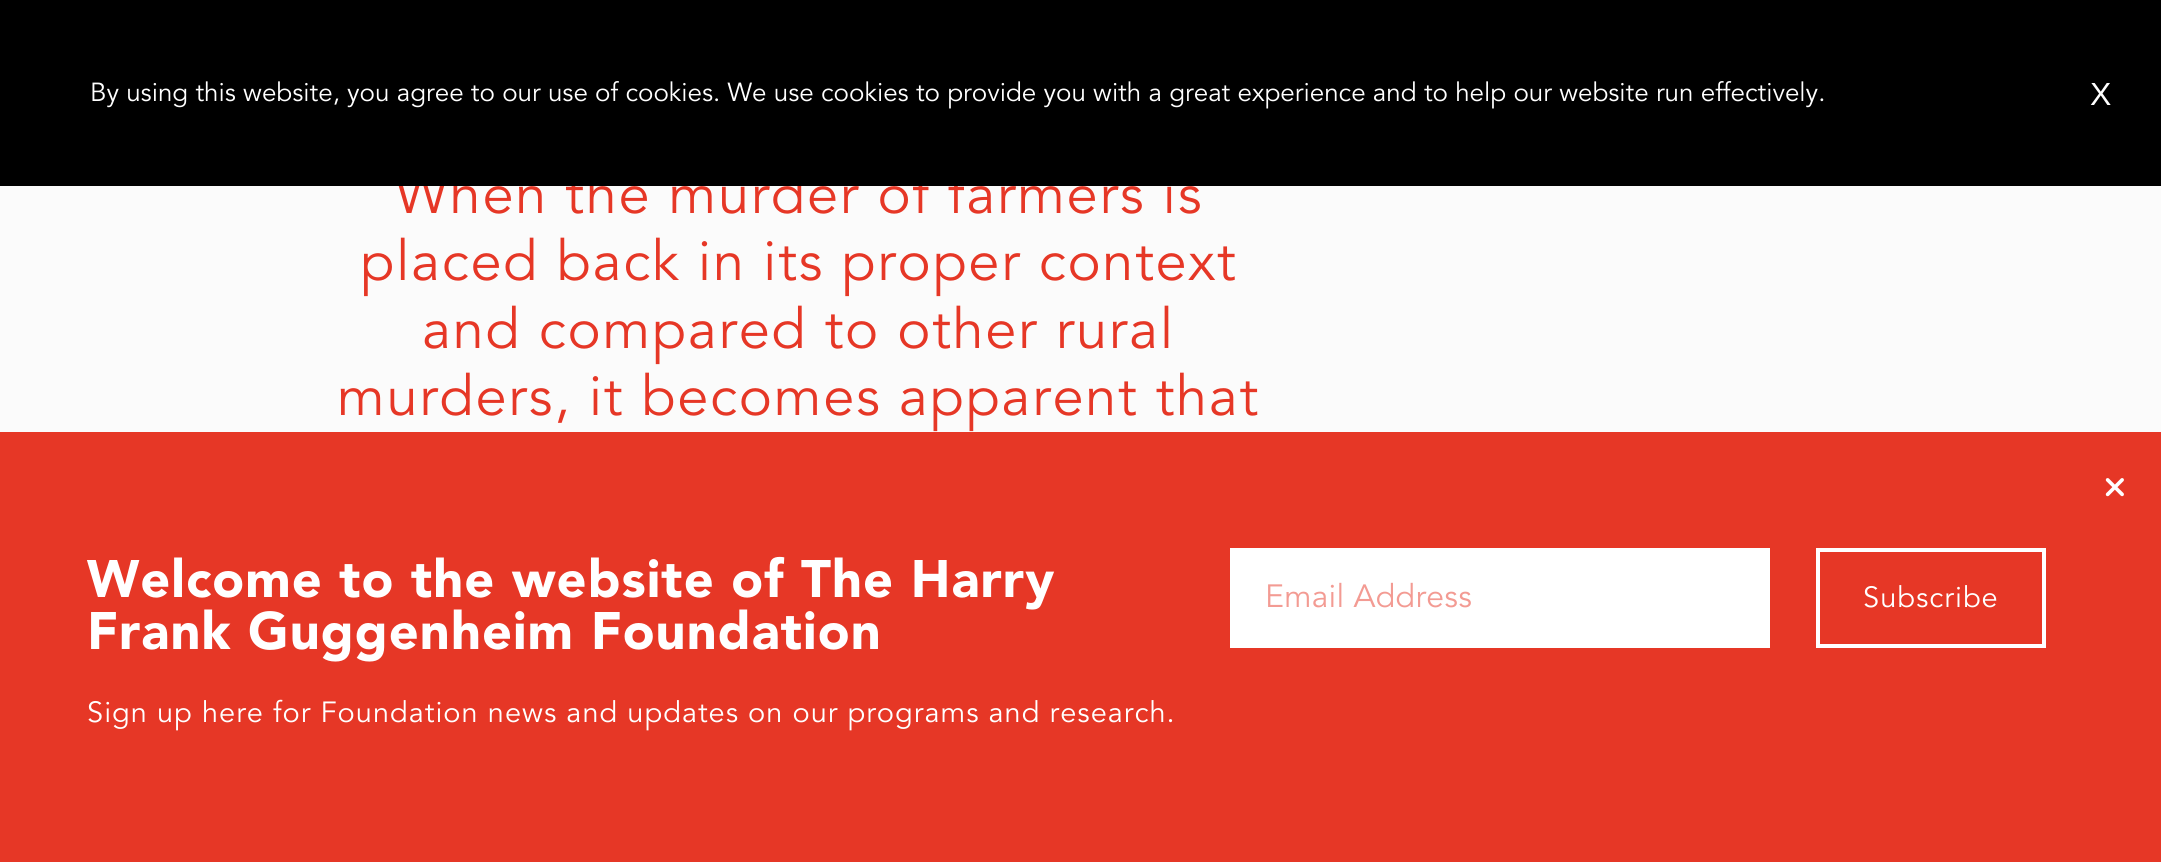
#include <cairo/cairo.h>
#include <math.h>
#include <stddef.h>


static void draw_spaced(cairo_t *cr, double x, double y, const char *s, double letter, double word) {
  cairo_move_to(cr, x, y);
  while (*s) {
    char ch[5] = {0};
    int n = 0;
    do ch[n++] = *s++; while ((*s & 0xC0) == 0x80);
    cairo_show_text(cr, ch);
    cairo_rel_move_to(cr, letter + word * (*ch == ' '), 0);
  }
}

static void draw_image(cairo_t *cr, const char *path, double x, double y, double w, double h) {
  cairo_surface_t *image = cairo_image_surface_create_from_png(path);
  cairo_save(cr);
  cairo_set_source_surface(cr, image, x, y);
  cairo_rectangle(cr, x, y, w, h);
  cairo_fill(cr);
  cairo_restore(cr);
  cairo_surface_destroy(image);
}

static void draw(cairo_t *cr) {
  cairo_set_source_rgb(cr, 251 / 255.0, 251 / 255.0, 251 / 255.0);
  cairo_paint(cr);
  cairo_set_source_rgb(cr, 230 / 255.0, 55 / 255.0, 38 / 255.0);
  cairo_rectangle(cr, 0, 432, 2161, 430);
  cairo_fill(cr);
  draw_image(cr, "images/1.png", 2105, 478, 19, 19);
  cairo_set_source_rgb(cr, 1, 1, 1);
  cairo_rectangle(cr, 1230, 548, 540, 100);
  cairo_fill(cr);
  cairo_rectangle(cr, 1818, 550, 226, 96);
  cairo_set_line_width(cr, 4);
  cairo_stroke(cr);
  cairo_select_font_face(cr, "Avenir", CAIRO_FONT_SLANT_NORMAL, CAIRO_FONT_WEIGHT_NORMAL);
  cairo_set_font_size(cr, 56);
  cairo_set_source_rgb(cr, 230 / 255.0, 55 / 255.0, 38 / 255.0);
  draw_spaced(cr, 395, 213, "When the murder of farmers is", 1.7, 0);
  cairo_set_source_rgb(cr, 0, 0, 0);
  cairo_rectangle(cr, 0, 0, 2161, 186);
  cairo_fill(cr);
  cairo_select_font_face(cr, "Liberation Sans", CAIRO_FONT_SLANT_NORMAL, CAIRO_FONT_WEIGHT_NORMAL);
  cairo_set_font_size(cr, 32);
  cairo_set_source_rgb(cr, 1, 1, 1);
  cairo_move_to(cr, 2090, 105);
  cairo_show_text(cr, "X");
  cairo_select_font_face(cr, "Avenir", CAIRO_FONT_SLANT_NORMAL, CAIRO_FONT_WEIGHT_NORMAL);
  cairo_set_font_size(cr, 26);
  cairo_move_to(cr, 90, 101);
  cairo_show_text(cr, "By using this website, you agree to our use of cookies. We use cookies to provide you with a great experience and to help our website run effectively.");
  cairo_set_font_size(cr, 56);
  cairo_set_source_rgb(cr, 230 / 255.0, 55 / 255.0, 38 / 255.0);
  draw_spaced(cr, 360, 280, "placed back in its proper context", 1.7, 0);
  draw_spaced(cr, 422, 348, "and compared to other rural", 1.7, 0);
  draw_spaced(cr, 337, 415, "murders, it becomes apparent that", 1.7, 0);
  cairo_select_font_face(cr, "Avenir Black", CAIRO_FONT_SLANT_NORMAL, CAIRO_FONT_WEIGHT_NORMAL);
  cairo_set_font_size(cr, 52.25);
  cairo_set_source_rgb(cr, 1, 1, 1);
  draw_spaced(cr, 87, 597, "Welcome to the website of The Harry", 1.05, 0);
  draw_spaced(cr, 87, 649, "Frank Guggenheim Foundation", 1.05, 0);
  cairo_select_font_face(cr, "Avenir", CAIRO_FONT_SLANT_NORMAL, CAIRO_FONT_WEIGHT_NORMAL);
  cairo_set_font_size(cr, 29);
  draw_spaced(cr, 87, 722, "Sign up here for Foundation news and updates on our programs and research.", 1, 0);
  cairo_set_font_size(cr, 32);
  cairo_set_source_rgb(cr, 243 / 255.0, 155 / 255.0, 147 / 255.0);
  draw_spaced(cr, 1265, 607, "Email Address", 0.25, 0);
  cairo_set_font_size(cr, 29);
  cairo_set_source_rgb(cr, 1, 1, 1);
  draw_spaced(cr, 1863, 607, "Subscribe", 1, 0);
}

int main(void) {
  cairo_surface_t *surface = cairo_image_surface_create(CAIRO_FORMAT_RGB24, 2161, 862);
  cairo_t *cr = cairo_create(surface);
  cairo_font_options_t *options = cairo_font_options_create();
  cairo_font_options_set_hint_metrics(options, CAIRO_HINT_METRICS_OFF);
  cairo_font_options_set_hint_style(options, CAIRO_HINT_STYLE_NONE);
  cairo_set_font_options(cr, options);
  cairo_set_miter_limit(cr, 4);
  draw(cr);
  cairo_surface_write_to_png(surface, "out.png");
  cairo_font_options_destroy(options);
  cairo_destroy(cr);
  cairo_surface_destroy(surface);
  return 0;
}
